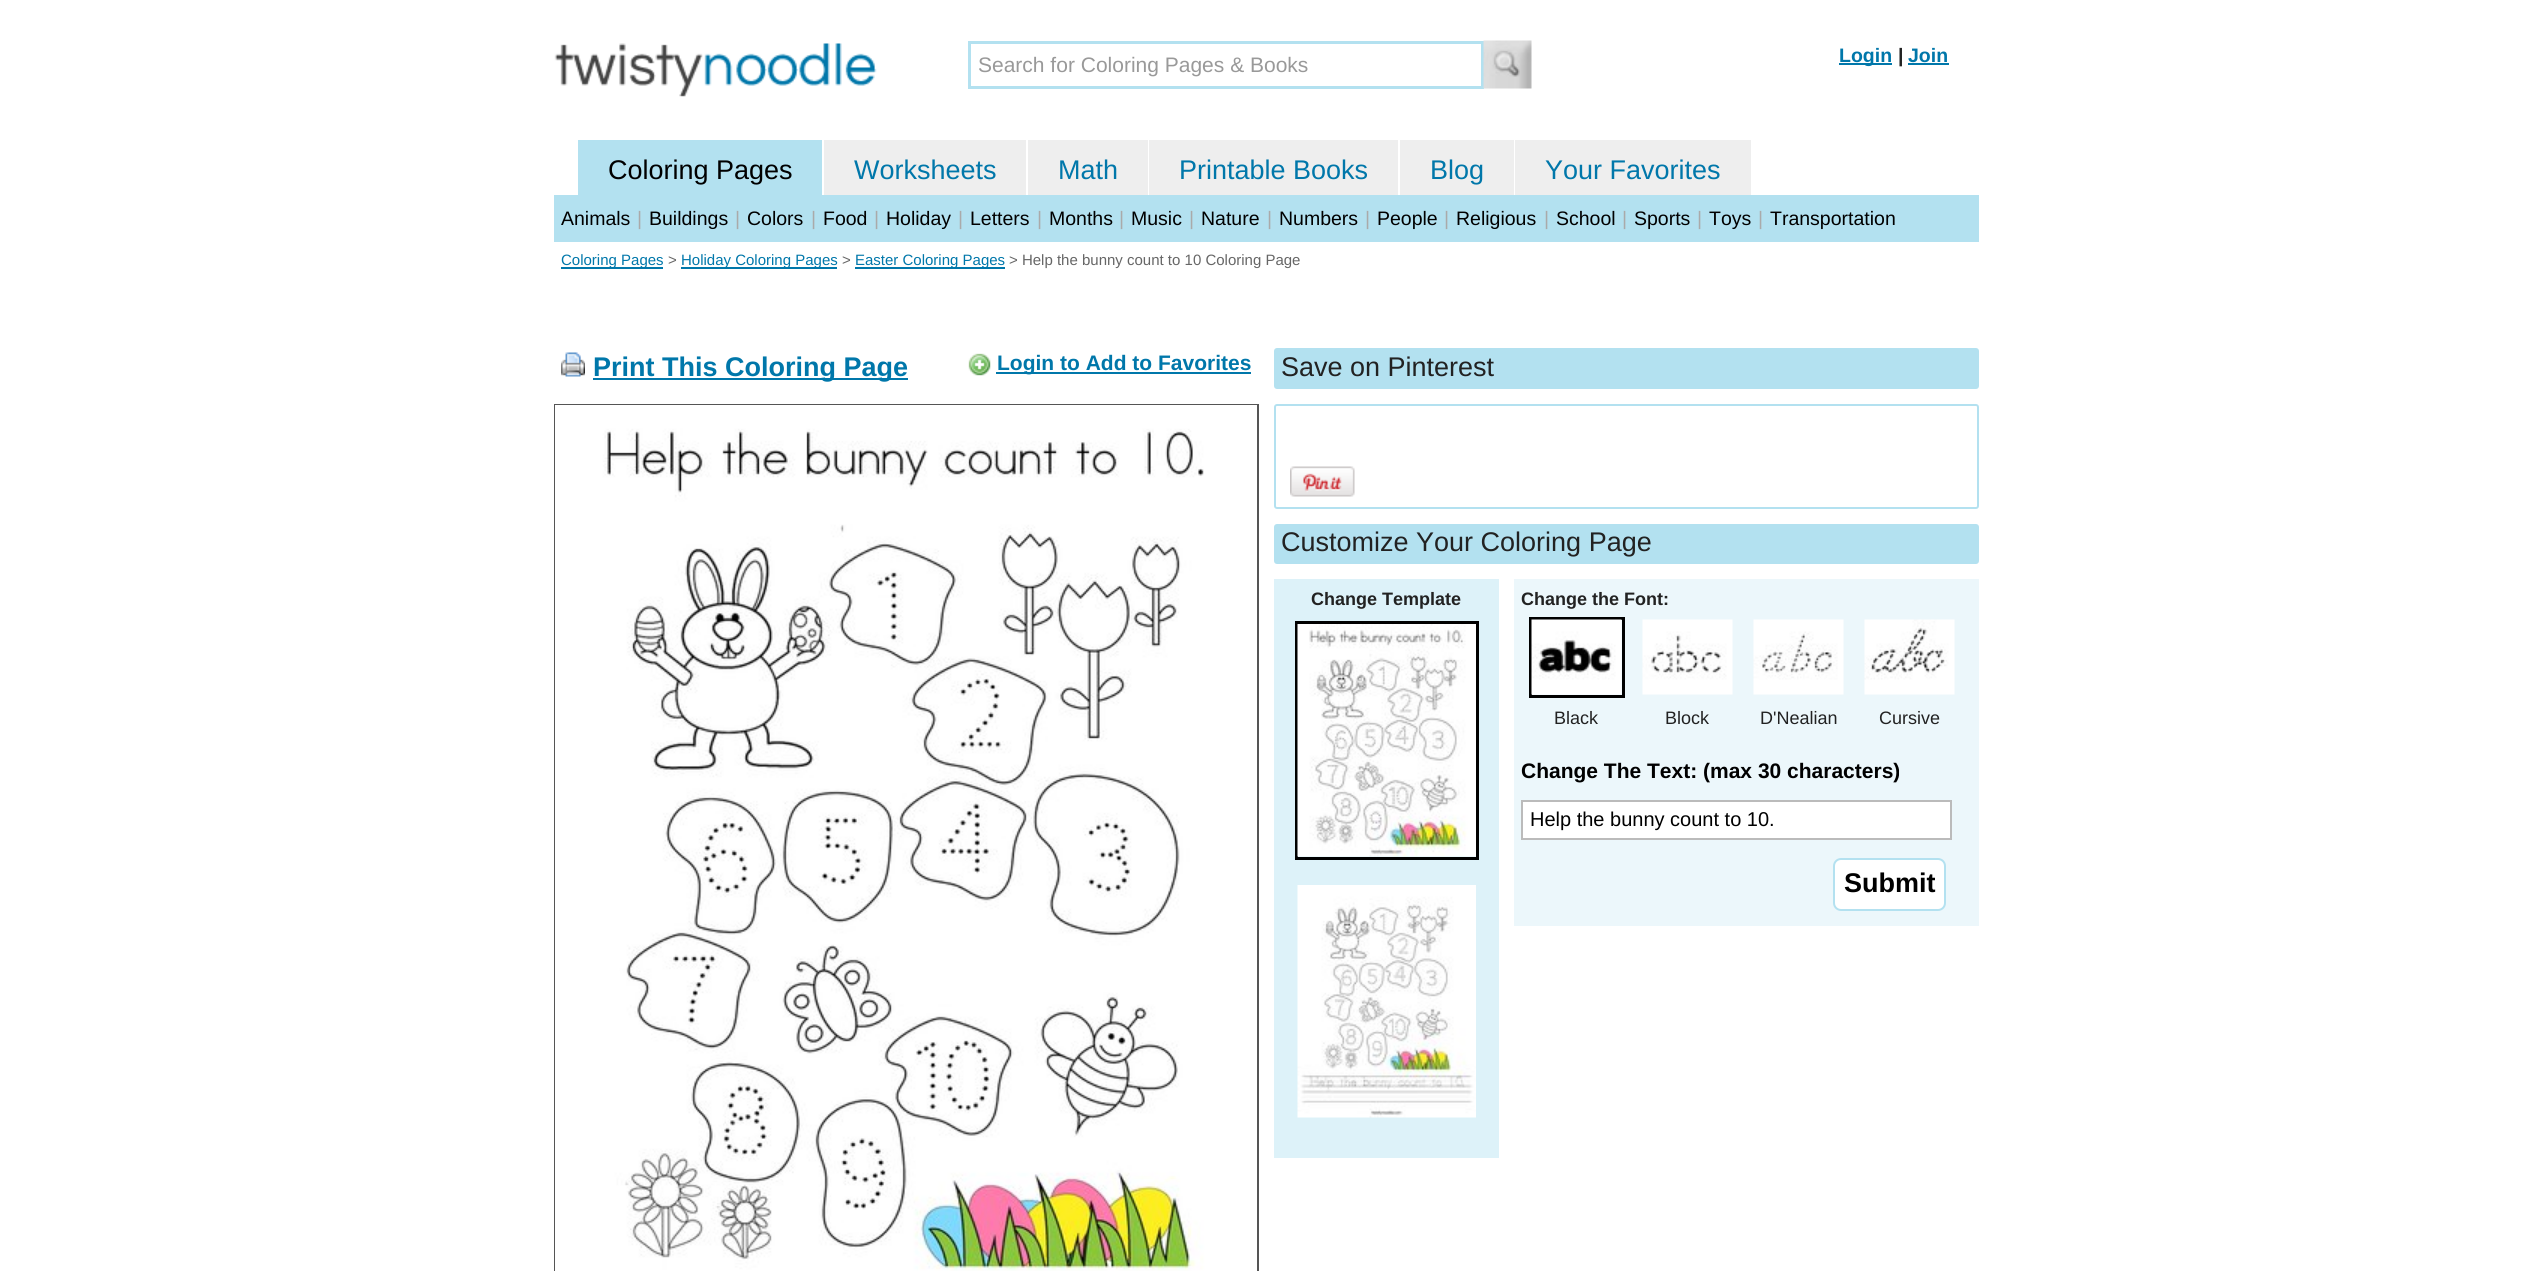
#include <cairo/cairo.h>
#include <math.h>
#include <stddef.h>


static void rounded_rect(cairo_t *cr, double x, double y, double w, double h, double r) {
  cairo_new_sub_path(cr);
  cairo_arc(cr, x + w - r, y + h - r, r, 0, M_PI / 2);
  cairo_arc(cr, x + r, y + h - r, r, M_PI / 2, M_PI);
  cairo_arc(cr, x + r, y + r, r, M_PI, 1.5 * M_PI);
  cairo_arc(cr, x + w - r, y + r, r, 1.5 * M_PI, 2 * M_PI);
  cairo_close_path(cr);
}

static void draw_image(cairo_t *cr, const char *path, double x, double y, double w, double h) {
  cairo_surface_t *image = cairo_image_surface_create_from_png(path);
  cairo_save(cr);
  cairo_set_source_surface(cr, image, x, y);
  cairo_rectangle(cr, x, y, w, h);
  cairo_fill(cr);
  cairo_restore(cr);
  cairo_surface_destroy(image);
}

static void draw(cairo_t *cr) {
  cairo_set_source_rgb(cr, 1, 1, 1);
  cairo_paint(cr);
  draw_image(cr, "images/1.png", 554, 43, 323, 54);
  cairo_rectangle(cr, 969.5, 42.5, 513, 45);
  cairo_set_source_rgb(cr, 179 / 255.0, 225 / 255.0, 240 / 255.0);
  cairo_set_line_width(cr, 3);
  cairo_stroke(cr);
  draw_image(cr, "images/2.png", 1483, 40, 49, 49);
  cairo_set_source_rgb(cr, 0, 119 / 255.0, 170 / 255.0);
  cairo_rectangle(cr, 1839, 63, 53, 2);
  cairo_fill(cr);
  cairo_rectangle(cr, 1908, 63, 41, 2);
  cairo_fill(cr);
  cairo_set_source_rgb(cr, 179 / 255.0, 225 / 255.0, 240 / 255.0);
  cairo_rectangle(cr, 578, 140, 244, 55);
  cairo_fill(cr);
  cairo_set_source_rgb(cr, 238 / 255.0, 238 / 255.0, 238 / 255.0);
  cairo_rectangle(cr, 824, 140, 202, 55);
  cairo_fill(cr);
  cairo_rectangle(cr, 1028, 140, 120, 55);
  cairo_fill(cr);
  cairo_rectangle(cr, 1149, 140, 249, 55);
  cairo_fill(cr);
  cairo_rectangle(cr, 1400, 140, 114, 55);
  cairo_fill(cr);
  cairo_rectangle(cr, 1515, 140, 236, 55);
  cairo_fill(cr);
  cairo_set_source_rgb(cr, 179 / 255.0, 225 / 255.0, 240 / 255.0);
  cairo_rectangle(cr, 554, 195, 1425, 47);
  cairo_fill(cr);
  cairo_set_source_rgb(cr, 0, 119 / 255.0, 170 / 255.0);
  cairo_rectangle(cr, 561, 267, 102, 2);
  cairo_fill(cr);
  cairo_rectangle(cr, 681, 267, 156, 2);
  cairo_fill(cr);
  cairo_rectangle(cr, 855, 267, 150, 2);
  cairo_fill(cr);
  draw_image(cr, "images/3.png", 561, 352, 24, 25);
  cairo_rectangle(cr, 593, 378, 315, 2);
  cairo_fill(cr);
  draw_image(cr, "images/4.png", 968, 353, 23, 23);
  cairo_rectangle(cr, 996, 372, 255, 2);
  cairo_fill(cr);
  cairo_rectangle(cr, 555, 405, 703, 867);
  cairo_set_source_rgb(cr, 85 / 255.0, 85 / 255.0, 85 / 255.0);
  cairo_set_line_width(cr, 2);
  cairo_stroke(cr);
  draw_image(cr, "images/5.png", 555, 405, 702, 866);
  cairo_set_source_rgb(cr, 179 / 255.0, 225 / 255.0, 240 / 255.0);
  rounded_rect(cr, 1274, 348, 705, 41, 3);
  cairo_fill(cr);
  rounded_rect(cr, 1275, 405, 703, 103, 2);
  cairo_stroke(cr);
  draw_image(cr, "images/6.png", 1290, 466, 65, 31);
  rounded_rect(cr, 1274, 524, 705, 40, 3);
  cairo_fill(cr);
  cairo_set_source_rgb(cr, 221 / 255.0, 242 / 255.0, 249 / 255.0);
  cairo_rectangle(cr, 1274, 579, 225, 579);
  cairo_fill(cr);
  cairo_rectangle(cr, 1296.5, 622.5, 181, 236);
  cairo_set_source_rgb(cr, 0, 0, 0);
  cairo_set_line_width(cr, 3);
  cairo_stroke(cr);
  draw_image(cr, "images/7.png", 1297, 624, 179, 233);
  draw_image(cr, "images/8.png", 1297, 885, 179, 233);
  cairo_set_source_rgb(cr, 236 / 255.0, 247 / 255.0, 251 / 255.0);
  cairo_rectangle(cr, 1514, 579, 465, 347);
  cairo_fill(cr);
  cairo_rectangle(cr, 1530.5, 618.5, 93, 78);
  cairo_set_source_rgb(cr, 0, 0, 0);
  cairo_stroke(cr);
  draw_image(cr, "images/9.png", 1531, 619, 91, 76);
  draw_image(cr, "images/10.png", 1642, 619, 91, 76);
  draw_image(cr, "images/11.png", 1753, 619, 91, 76);
  draw_image(cr, "images/12.png", 1864, 619, 91, 76);
  cairo_set_source_rgb(cr, 1, 1, 1);
  cairo_rectangle(cr, 1522, 801, 429, 38);
  cairo_fill_preserve(cr);
  cairo_set_source_rgb(cr, 187 / 255.0, 187 / 255.0, 187 / 255.0);
  cairo_set_line_width(cr, 2);
  cairo_stroke(cr);
  cairo_set_source_rgb(cr, 1, 1, 1);
  rounded_rect(cr, 1834, 859, 111, 51, 7);
  cairo_fill_preserve(cr);
  cairo_set_source_rgb(cr, 179 / 255.0, 225 / 255.0, 240 / 255.0);
  cairo_stroke(cr);
  cairo_select_font_face(cr, "Liberation Sans", CAIRO_FONT_SLANT_NORMAL, CAIRO_FONT_WEIGHT_NORMAL);
  cairo_set_font_size(cr, 21);
  cairo_set_source_rgb(cr, 153 / 255.0, 153 / 255.0, 153 / 255.0);
  cairo_move_to(cr, 978, 72);
  cairo_show_text(cr, "Search for Coloring Pages & Books");
  cairo_select_font_face(cr, "Liberation Sans", CAIRO_FONT_SLANT_NORMAL, CAIRO_FONT_WEIGHT_BOLD);
  cairo_set_font_size(cr, 19.5);
  cairo_set_source_rgb(cr, 0, 119 / 255.0, 170 / 255.0);
  cairo_move_to(cr, 1839, 62);
  cairo_show_text(cr, "Login");
  cairo_set_source_rgb(cr, 34 / 255.0, 34 / 255.0, 34 / 255.0);
  cairo_move_to(cr, 1898, 62);
  cairo_show_text(cr, "|");
  cairo_set_source_rgb(cr, 0, 119 / 255.0, 170 / 255.0);
  cairo_move_to(cr, 1908, 62);
  cairo_show_text(cr, "Join");
  cairo_select_font_face(cr, "Liberation Sans", CAIRO_FONT_SLANT_NORMAL, CAIRO_FONT_WEIGHT_NORMAL);
  cairo_set_font_size(cr, 27);
  cairo_set_source_rgb(cr, 0, 0, 0);
  cairo_move_to(cr, 608, 179);
  cairo_show_text(cr, "Coloring Pages");
  cairo_set_source_rgb(cr, 0, 119 / 255.0, 170 / 255.0);
  cairo_move_to(cr, 854, 179);
  cairo_show_text(cr, "Worksheets");
  cairo_move_to(cr, 1058, 179);
  cairo_show_text(cr, "Math");
  cairo_move_to(cr, 1179, 179);
  cairo_show_text(cr, "Printable Books");
  cairo_move_to(cr, 1430, 179);
  cairo_show_text(cr, "Blog");
  cairo_move_to(cr, 1545, 179);
  cairo_show_text(cr, "Your Favorites");
  cairo_set_font_size(cr, 19.5);
  cairo_set_source_rgb(cr, 0, 0, 0);
  cairo_move_to(cr, 561, 225);
  cairo_show_text(cr, "Animals");
  cairo_set_source_rgb(cr, 170 / 255.0, 170 / 255.0, 170 / 255.0);
  cairo_move_to(cr, 637, 225);
  cairo_show_text(cr, "|");
  cairo_set_source_rgb(cr, 0, 0, 0);
  cairo_move_to(cr, 649, 225);
  cairo_show_text(cr, "Buildings");
  cairo_set_source_rgb(cr, 170 / 255.0, 170 / 255.0, 170 / 255.0);
  cairo_move_to(cr, 735, 225);
  cairo_show_text(cr, "|");
  cairo_set_source_rgb(cr, 0, 0, 0);
  cairo_move_to(cr, 747, 225);
  cairo_show_text(cr, "Colors");
  cairo_set_source_rgb(cr, 170 / 255.0, 170 / 255.0, 170 / 255.0);
  cairo_move_to(cr, 811, 225);
  cairo_show_text(cr, "|");
  cairo_set_source_rgb(cr, 0, 0, 0);
  cairo_move_to(cr, 823, 225);
  cairo_show_text(cr, "Food");
  cairo_set_source_rgb(cr, 170 / 255.0, 170 / 255.0, 170 / 255.0);
  cairo_move_to(cr, 874, 225);
  cairo_show_text(cr, "|");
  cairo_set_source_rgb(cr, 0, 0, 0);
  cairo_move_to(cr, 886, 225);
  cairo_show_text(cr, "Holiday");
  cairo_set_source_rgb(cr, 170 / 255.0, 170 / 255.0, 170 / 255.0);
  cairo_move_to(cr, 958, 225);
  cairo_show_text(cr, "|");
  cairo_set_source_rgb(cr, 0, 0, 0);
  cairo_move_to(cr, 970, 225);
  cairo_show_text(cr, "Letters");
  cairo_set_source_rgb(cr, 170 / 255.0, 170 / 255.0, 170 / 255.0);
  cairo_move_to(cr, 1037, 225);
  cairo_show_text(cr, "|");
  cairo_set_source_rgb(cr, 0, 0, 0);
  cairo_move_to(cr, 1049, 225);
  cairo_show_text(cr, "Months");
  cairo_set_source_rgb(cr, 170 / 255.0, 170 / 255.0, 170 / 255.0);
  cairo_move_to(cr, 1119, 225);
  cairo_show_text(cr, "|");
  cairo_set_source_rgb(cr, 0, 0, 0);
  cairo_move_to(cr, 1131, 225);
  cairo_show_text(cr, "Music");
  cairo_set_source_rgb(cr, 170 / 255.0, 170 / 255.0, 170 / 255.0);
  cairo_move_to(cr, 1189, 225);
  cairo_show_text(cr, "|");
  cairo_set_source_rgb(cr, 0, 0, 0);
  cairo_move_to(cr, 1201, 225);
  cairo_show_text(cr, "Nature");
  cairo_set_source_rgb(cr, 170 / 255.0, 170 / 255.0, 170 / 255.0);
  cairo_move_to(cr, 1267, 225);
  cairo_show_text(cr, "|");
  cairo_set_source_rgb(cr, 0, 0, 0);
  cairo_move_to(cr, 1279, 225);
  cairo_show_text(cr, "Numbers");
  cairo_set_source_rgb(cr, 170 / 255.0, 170 / 255.0, 170 / 255.0);
  cairo_move_to(cr, 1365, 225);
  cairo_show_text(cr, "|");
  cairo_set_source_rgb(cr, 0, 0, 0);
  cairo_move_to(cr, 1377, 225);
  cairo_show_text(cr, "People");
  cairo_set_source_rgb(cr, 170 / 255.0, 170 / 255.0, 170 / 255.0);
  cairo_move_to(cr, 1444, 225);
  cairo_show_text(cr, "|");
  cairo_set_source_rgb(cr, 0, 0, 0);
  cairo_move_to(cr, 1456, 225);
  cairo_show_text(cr, "Religious");
  cairo_set_source_rgb(cr, 170 / 255.0, 170 / 255.0, 170 / 255.0);
  cairo_move_to(cr, 1544, 225);
  cairo_show_text(cr, "|");
  cairo_set_source_rgb(cr, 0, 0, 0);
  cairo_move_to(cr, 1556, 225);
  cairo_show_text(cr, "School");
  cairo_set_source_rgb(cr, 170 / 255.0, 170 / 255.0, 170 / 255.0);
  cairo_move_to(cr, 1622, 225);
  cairo_show_text(cr, "|");
  cairo_set_source_rgb(cr, 0, 0, 0);
  cairo_move_to(cr, 1634, 225);
  cairo_show_text(cr, "Sports");
  cairo_set_source_rgb(cr, 170 / 255.0, 170 / 255.0, 170 / 255.0);
  cairo_move_to(cr, 1697, 225);
  cairo_show_text(cr, "|");
  cairo_set_source_rgb(cr, 0, 0, 0);
  cairo_move_to(cr, 1709, 225);
  cairo_show_text(cr, "Toys");
  cairo_set_source_rgb(cr, 170 / 255.0, 170 / 255.0, 170 / 255.0);
  cairo_move_to(cr, 1758, 225);
  cairo_show_text(cr, "|");
  cairo_set_source_rgb(cr, 0, 0, 0);
  cairo_move_to(cr, 1770, 225);
  cairo_show_text(cr, "Transportation");
  cairo_set_font_size(cr, 15);
  cairo_set_source_rgb(cr, 0, 119 / 255.0, 170 / 255.0);
  cairo_move_to(cr, 561, 265);
  cairo_show_text(cr, "Coloring Pages");
  cairo_set_source_rgb(cr, 102 / 255.0, 102 / 255.0, 102 / 255.0);
  cairo_move_to(cr, 668, 265);
  cairo_show_text(cr, ">");
  cairo_set_source_rgb(cr, 0, 119 / 255.0, 170 / 255.0);
  cairo_move_to(cr, 681, 265);
  cairo_show_text(cr, "Holiday Coloring Pages");
  cairo_set_source_rgb(cr, 102 / 255.0, 102 / 255.0, 102 / 255.0);
  cairo_move_to(cr, 842, 265);
  cairo_show_text(cr, ">");
  cairo_set_source_rgb(cr, 0, 119 / 255.0, 170 / 255.0);
  cairo_move_to(cr, 855, 265);
  cairo_show_text(cr, "Easter Coloring Pages");
  cairo_set_source_rgb(cr, 102 / 255.0, 102 / 255.0, 102 / 255.0);
  cairo_move_to(cr, 1009, 265);
  cairo_show_text(cr, "> Help the bunny count to 10 Coloring Page");
  cairo_select_font_face(cr, "Liberation Sans", CAIRO_FONT_SLANT_NORMAL, CAIRO_FONT_WEIGHT_BOLD);
  cairo_set_font_size(cr, 27);
  cairo_set_source_rgb(cr, 0, 119 / 255.0, 170 / 255.0);
  cairo_move_to(cr, 593, 376);
  cairo_show_text(cr, "Print This Coloring Page");
  cairo_set_font_size(cr, 21);
  cairo_move_to(cr, 997, 370);
  cairo_show_text(cr, "Login to Add to Favorites");
  cairo_select_font_face(cr, "Liberation Sans", CAIRO_FONT_SLANT_NORMAL, CAIRO_FONT_WEIGHT_NORMAL);
  cairo_set_font_size(cr, 27);
  cairo_set_source_rgb(cr, 34 / 255.0, 34 / 255.0, 34 / 255.0);
  cairo_move_to(cr, 1281, 376);
  cairo_show_text(cr, "Save on Pinterest");
  cairo_move_to(cr, 1281, 551);
  cairo_show_text(cr, "Customize Your Coloring Page");
  cairo_select_font_face(cr, "Liberation Sans", CAIRO_FONT_SLANT_NORMAL, CAIRO_FONT_WEIGHT_BOLD);
  cairo_set_font_size(cr, 18);
  cairo_move_to(cr, 1311, 605);
  cairo_show_text(cr, "Change Template");
  cairo_move_to(cr, 1521, 605);
  cairo_show_text(cr, "Change the Font:");
  cairo_select_font_face(cr, "Liberation Sans", CAIRO_FONT_SLANT_NORMAL, CAIRO_FONT_WEIGHT_NORMAL);
  cairo_move_to(cr, 1554, 724);
  cairo_show_text(cr, "Black");
  cairo_move_to(cr, 1665, 724);
  cairo_show_text(cr, "Block");
  cairo_move_to(cr, 1760, 724);
  cairo_show_text(cr, "D'Nealian");
  cairo_move_to(cr, 1879, 724);
  cairo_show_text(cr, "Cursive");
  cairo_select_font_face(cr, "Liberation Sans", CAIRO_FONT_SLANT_NORMAL, CAIRO_FONT_WEIGHT_BOLD);
  cairo_set_font_size(cr, 21);
  cairo_set_source_rgb(cr, 0, 0, 0);
  cairo_move_to(cr, 1521, 778);
  cairo_show_text(cr, "Change The Text: (max 30 characters)");
  cairo_select_font_face(cr, "Liberation Sans", CAIRO_FONT_SLANT_NORMAL, CAIRO_FONT_WEIGHT_NORMAL);
  cairo_set_font_size(cr, 20);
  cairo_move_to(cr, 1530, 826);
  cairo_show_text(cr, "Help the bunny count to 10.");
  cairo_select_font_face(cr, "Liberation Sans", CAIRO_FONT_SLANT_NORMAL, CAIRO_FONT_WEIGHT_BOLD);
  cairo_set_font_size(cr, 27);
  cairo_move_to(cr, 1844, 892);
  cairo_show_text(cr, "Submit");
}

int main(void) {
  cairo_surface_t *surface = cairo_image_surface_create(CAIRO_FORMAT_RGB24, 2532, 1271);
  cairo_t *cr = cairo_create(surface);
  cairo_font_options_t *options = cairo_font_options_create();
  cairo_font_options_set_hint_metrics(options, CAIRO_HINT_METRICS_OFF);
  cairo_font_options_set_hint_style(options, CAIRO_HINT_STYLE_NONE);
  cairo_set_font_options(cr, options);
  cairo_set_miter_limit(cr, 4);
  draw(cr);
  cairo_surface_write_to_png(surface, "out.png");
  cairo_font_options_destroy(options);
  cairo_destroy(cr);
  cairo_surface_destroy(surface);
  return 0;
}
